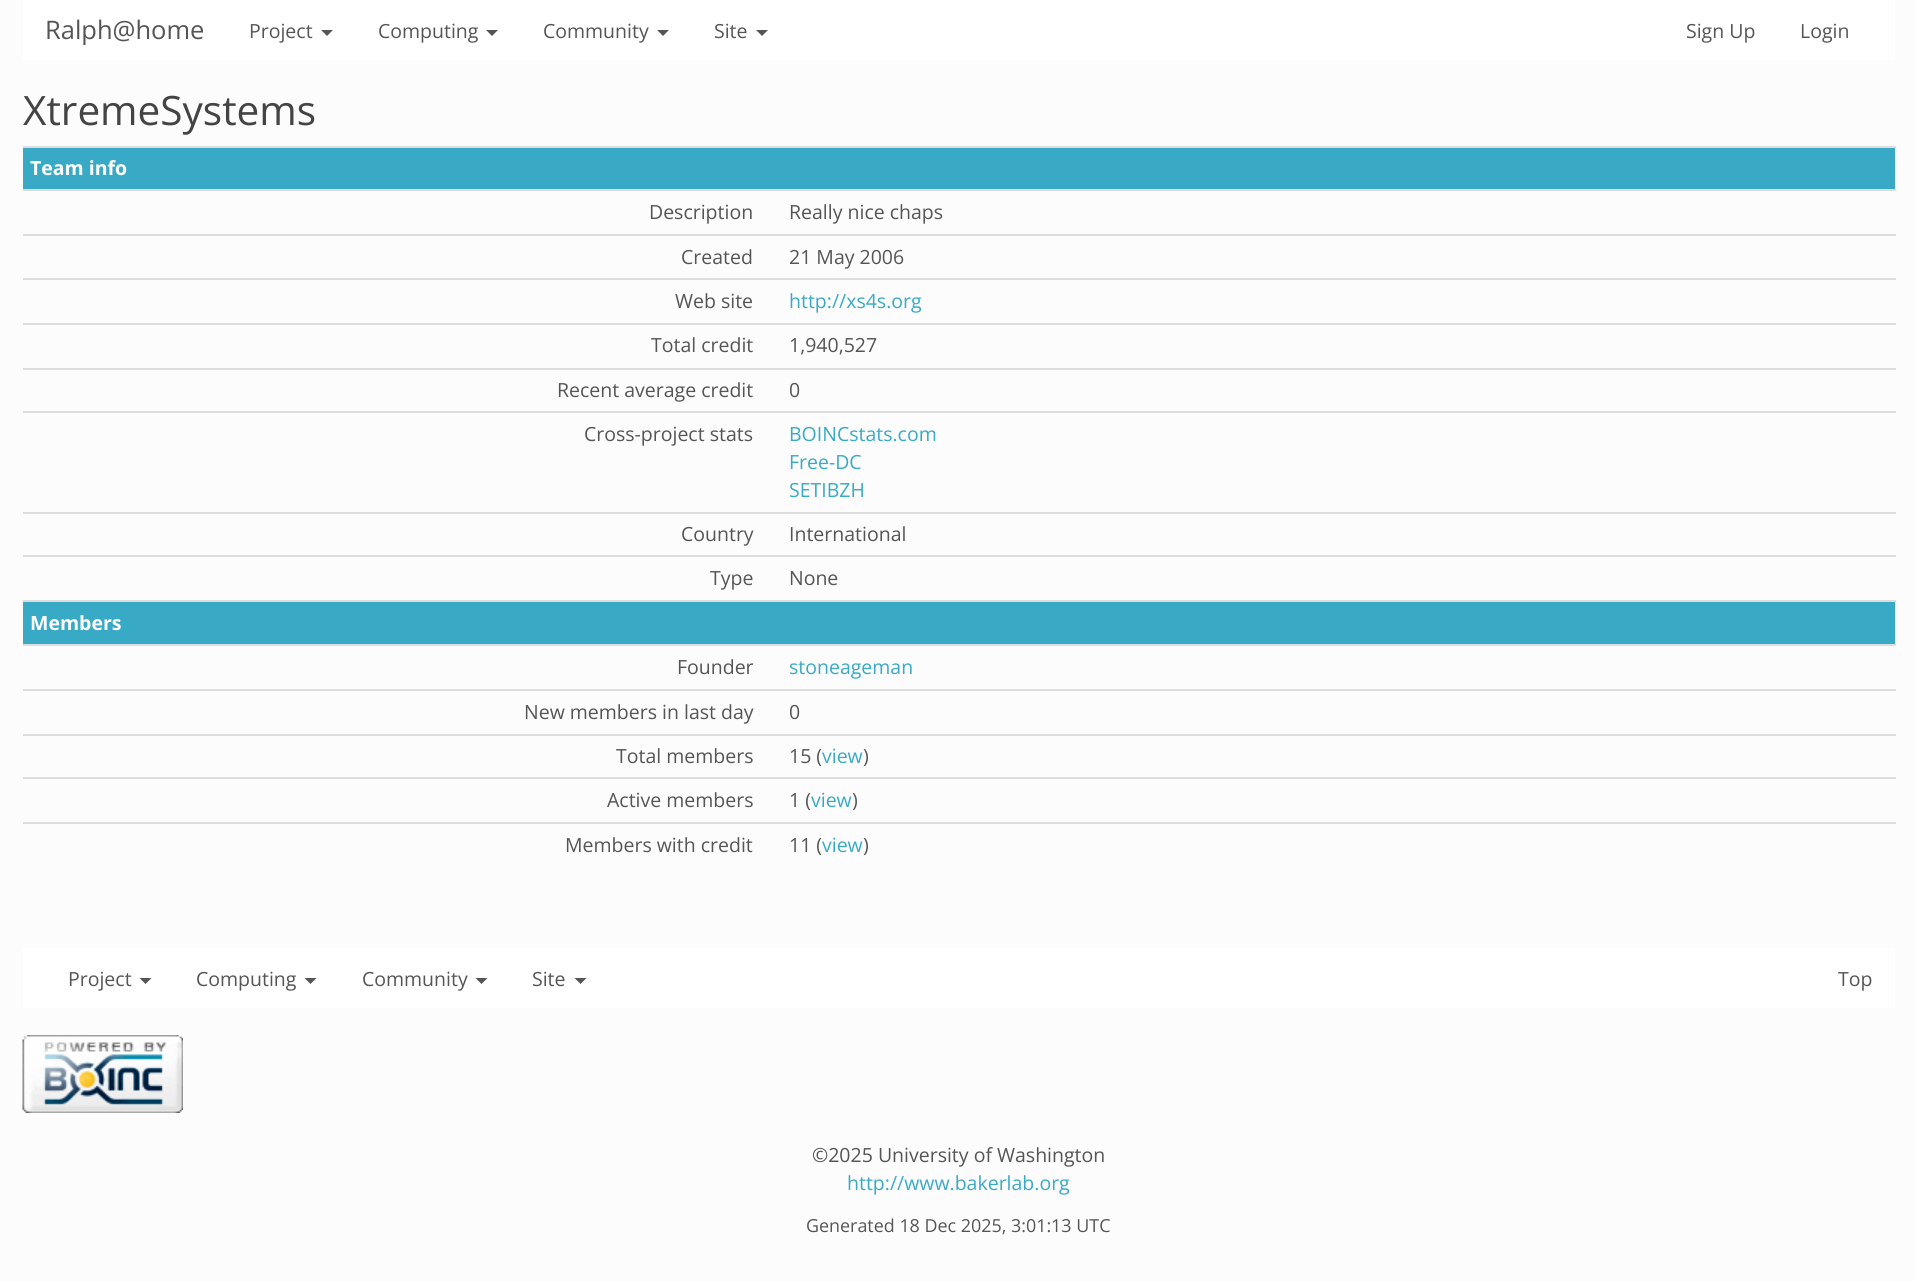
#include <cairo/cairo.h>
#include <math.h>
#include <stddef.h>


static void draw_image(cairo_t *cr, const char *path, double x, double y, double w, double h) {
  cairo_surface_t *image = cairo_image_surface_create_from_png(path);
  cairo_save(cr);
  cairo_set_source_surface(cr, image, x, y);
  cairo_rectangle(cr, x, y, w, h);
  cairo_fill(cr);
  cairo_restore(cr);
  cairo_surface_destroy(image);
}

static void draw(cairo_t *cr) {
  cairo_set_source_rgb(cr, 252 / 255.0, 252 / 255.0, 252 / 255.0);
  cairo_paint(cr);
  cairo_set_source_rgb(cr, 1, 1, 1);
  cairo_rectangle(cr, 23, 0, 1872, 60);
  cairo_fill(cr);
  cairo_set_source_rgb(cr, 85 / 255.0, 85 / 255.0, 85 / 255.0);
  cairo_new_path(cr);
  cairo_move_to(cr, 321, 30);
  cairo_line_to(cr, 333, 30);
  cairo_line_to(cr, 327, 36);
  cairo_close_path(cr);
  cairo_fill(cr);
  cairo_new_path(cr);
  cairo_move_to(cr, 486, 30);
  cairo_line_to(cr, 498, 30);
  cairo_line_to(cr, 492, 36);
  cairo_close_path(cr);
  cairo_fill(cr);
  cairo_new_path(cr);
  cairo_move_to(cr, 657, 30);
  cairo_line_to(cr, 669, 30);
  cairo_line_to(cr, 663, 36);
  cairo_close_path(cr);
  cairo_fill(cr);
  cairo_new_path(cr);
  cairo_move_to(cr, 756, 30);
  cairo_line_to(cr, 768, 30);
  cairo_line_to(cr, 762, 36);
  cairo_close_path(cr);
  cairo_fill(cr);
  cairo_set_source_rgb(cr, 57 / 255.0, 170 / 255.0, 198 / 255.0);
  cairo_rectangle(cr, 23, 148, 1872, 41);
  cairo_fill(cr);
  cairo_set_source_rgb(cr, 221 / 255.0, 221 / 255.0, 221 / 255.0);
  cairo_rectangle(cr, 23, 146, 1873, 2);
  cairo_fill(cr);
  cairo_rectangle(cr, 23, 189, 1873, 2);
  cairo_fill(cr);
  cairo_rectangle(cr, 23, 234, 1873, 2);
  cairo_fill(cr);
  cairo_rectangle(cr, 23, 278, 1873, 2);
  cairo_fill(cr);
  cairo_rectangle(cr, 23, 323, 1873, 2);
  cairo_fill(cr);
  cairo_rectangle(cr, 23, 368, 1873, 2);
  cairo_fill(cr);
  cairo_rectangle(cr, 23, 411, 1873, 2);
  cairo_fill(cr);
  cairo_rectangle(cr, 23, 512, 1873, 2);
  cairo_fill(cr);
  cairo_rectangle(cr, 23, 555, 1873, 2);
  cairo_fill(cr);
  cairo_set_source_rgb(cr, 57 / 255.0, 170 / 255.0, 198 / 255.0);
  cairo_rectangle(cr, 23, 602, 1872, 42);
  cairo_fill(cr);
  cairo_set_source_rgb(cr, 221 / 255.0, 221 / 255.0, 221 / 255.0);
  cairo_rectangle(cr, 23, 600, 1873, 2);
  cairo_fill(cr);
  cairo_rectangle(cr, 23, 644, 1873, 2);
  cairo_fill(cr);
  cairo_rectangle(cr, 23, 689, 1873, 2);
  cairo_fill(cr);
  cairo_rectangle(cr, 23, 734, 1873, 2);
  cairo_fill(cr);
  cairo_rectangle(cr, 23, 777, 1873, 2);
  cairo_fill(cr);
  cairo_rectangle(cr, 23, 822, 1873, 2);
  cairo_fill(cr);
  cairo_set_source_rgb(cr, 1, 1, 1);
  cairo_rectangle(cr, 23, 948, 1872, 60);
  cairo_fill(cr);
  cairo_set_source_rgb(cr, 85 / 255.0, 85 / 255.0, 85 / 255.0);
  cairo_new_path(cr);
  cairo_move_to(cr, 139.5, 978);
  cairo_line_to(cr, 151.5, 978);
  cairo_line_to(cr, 145.5, 984);
  cairo_close_path(cr);
  cairo_fill(cr);
  cairo_new_path(cr);
  cairo_move_to(cr, 304.5, 978);
  cairo_line_to(cr, 316.5, 978);
  cairo_line_to(cr, 310.5, 984);
  cairo_close_path(cr);
  cairo_fill(cr);
  cairo_new_path(cr);
  cairo_move_to(cr, 475.5, 978);
  cairo_line_to(cr, 487.5, 978);
  cairo_line_to(cr, 481.5, 984);
  cairo_close_path(cr);
  cairo_fill(cr);
  cairo_new_path(cr);
  cairo_move_to(cr, 574.5, 978);
  cairo_line_to(cr, 586.5, 978);
  cairo_line_to(cr, 580.5, 984);
  cairo_close_path(cr);
  cairo_fill(cr);
  draw_image(cr, "images/1.png", 22, 1035, 161, 78);
  cairo_select_font_face(cr, "Open Sans", CAIRO_FONT_SLANT_NORMAL, CAIRO_FONT_WEIGHT_NORMAL);
  cairo_set_font_size(cr, 25.5);
  cairo_move_to(cr, 45, 39);
  cairo_show_text(cr, "Ralph@home");
  cairo_set_font_size(cr, 19.5);
  cairo_move_to(cr, 249, 38);
  cairo_show_text(cr, "Project");
  cairo_move_to(cr, 378, 38);
  cairo_show_text(cr, "Computing");
  cairo_move_to(cr, 543, 38);
  cairo_show_text(cr, "Community");
  cairo_move_to(cr, 714, 38);
  cairo_show_text(cr, "Site");
  cairo_move_to(cr, 1686, 38);
  cairo_show_text(cr, "Sign Up");
  cairo_move_to(cr, 1800, 38);
  cairo_show_text(cr, "Login");
  cairo_set_font_size(cr, 40.5);
  cairo_set_source_rgb(cr, 68 / 255.0, 68 / 255.0, 68 / 255.0);
  cairo_move_to(cr, 23, 125);
  cairo_show_text(cr, "XtremeSystems");
  cairo_select_font_face(cr, "Open Sans", CAIRO_FONT_SLANT_NORMAL, CAIRO_FONT_WEIGHT_BOLD);
  cairo_set_font_size(cr, 19.5);
  cairo_set_source_rgb(cr, 1, 1, 1);
  cairo_move_to(cr, 30, 175);
  cairo_show_text(cr, "Team info");
  cairo_select_font_face(cr, "Open Sans", CAIRO_FONT_SLANT_NORMAL, CAIRO_FONT_WEIGHT_NORMAL);
  cairo_set_source_rgb(cr, 85 / 255.0, 85 / 255.0, 85 / 255.0);
  cairo_move_to(cr, 649, 219);
  cairo_show_text(cr, "Description");
  cairo_move_to(cr, 789, 219);
  cairo_show_text(cr, "Really nice chaps");
  cairo_move_to(cr, 681, 264);
  cairo_show_text(cr, "Created");
  cairo_move_to(cr, 789, 264);
  cairo_show_text(cr, "21 May 2006");
  cairo_move_to(cr, 675, 308);
  cairo_show_text(cr, "Web site");
  cairo_set_source_rgb(cr, 57 / 255.0, 170 / 255.0, 198 / 255.0);
  cairo_move_to(cr, 789, 308);
  cairo_show_text(cr, "http://xs4s.org");
  cairo_set_source_rgb(cr, 85 / 255.0, 85 / 255.0, 85 / 255.0);
  cairo_move_to(cr, 651, 352);
  cairo_show_text(cr, "Total credit");
  cairo_move_to(cr, 789, 352);
  cairo_show_text(cr, "1,940,527");
  cairo_move_to(cr, 557, 397);
  cairo_show_text(cr, "Recent average credit");
  cairo_move_to(cr, 789, 397);
  cairo_show_text(cr, "0");
  cairo_move_to(cr, 584, 441);
  cairo_show_text(cr, "Cross-project stats");
  cairo_set_source_rgb(cr, 57 / 255.0, 170 / 255.0, 198 / 255.0);
  cairo_move_to(cr, 789, 441);
  cairo_show_text(cr, "BOINCstats.com");
  cairo_move_to(cr, 789, 469);
  cairo_show_text(cr, "Free-DC");
  cairo_move_to(cr, 789, 497);
  cairo_show_text(cr, "SETIBZH");
  cairo_set_source_rgb(cr, 85 / 255.0, 85 / 255.0, 85 / 255.0);
  cairo_move_to(cr, 681, 541);
  cairo_show_text(cr, "Country");
  cairo_move_to(cr, 789, 541);
  cairo_show_text(cr, "International");
  cairo_move_to(cr, 710, 585);
  cairo_show_text(cr, "Type");
  cairo_move_to(cr, 789, 585);
  cairo_show_text(cr, "None");
  cairo_select_font_face(cr, "Open Sans", CAIRO_FONT_SLANT_NORMAL, CAIRO_FONT_WEIGHT_BOLD);
  cairo_set_source_rgb(cr, 1, 1, 1);
  cairo_move_to(cr, 30, 630);
  cairo_show_text(cr, "Members");
  cairo_select_font_face(cr, "Open Sans", CAIRO_FONT_SLANT_NORMAL, CAIRO_FONT_WEIGHT_NORMAL);
  cairo_set_source_rgb(cr, 85 / 255.0, 85 / 255.0, 85 / 255.0);
  cairo_move_to(cr, 677, 674);
  cairo_show_text(cr, "Founder");
  cairo_set_source_rgb(cr, 57 / 255.0, 170 / 255.0, 198 / 255.0);
  cairo_move_to(cr, 789, 674);
  cairo_show_text(cr, "stoneageman");
  cairo_set_source_rgb(cr, 85 / 255.0, 85 / 255.0, 85 / 255.0);
  cairo_move_to(cr, 524, 719);
  cairo_show_text(cr, "New members in last day");
  cairo_move_to(cr, 789, 719);
  cairo_show_text(cr, "0");
  cairo_move_to(cr, 616, 763);
  cairo_show_text(cr, "Total members");
  cairo_move_to(cr, 789, 763);
  cairo_show_text(cr, "15 (");
  cairo_set_source_rgb(cr, 57 / 255.0, 170 / 255.0, 198 / 255.0);
  cairo_move_to(cr, 822, 763);
  cairo_show_text(cr, "view");
  cairo_set_source_rgb(cr, 85 / 255.0, 85 / 255.0, 85 / 255.0);
  cairo_move_to(cr, 863, 763);
  cairo_show_text(cr, ")");
  cairo_move_to(cr, 607, 807);
  cairo_show_text(cr, "Active members");
  cairo_move_to(cr, 789, 807);
  cairo_show_text(cr, "1 (");
  cairo_set_source_rgb(cr, 57 / 255.0, 170 / 255.0, 198 / 255.0);
  cairo_move_to(cr, 811, 807);
  cairo_show_text(cr, "view");
  cairo_set_source_rgb(cr, 85 / 255.0, 85 / 255.0, 85 / 255.0);
  cairo_move_to(cr, 852, 807);
  cairo_show_text(cr, ")");
  cairo_move_to(cr, 565, 852);
  cairo_show_text(cr, "Members with credit");
  cairo_move_to(cr, 789, 852);
  cairo_show_text(cr, "11 (");
  cairo_set_source_rgb(cr, 57 / 255.0, 170 / 255.0, 198 / 255.0);
  cairo_move_to(cr, 822, 852);
  cairo_show_text(cr, "view");
  cairo_set_source_rgb(cr, 85 / 255.0, 85 / 255.0, 85 / 255.0);
  cairo_move_to(cr, 863, 852);
  cairo_show_text(cr, ")");
  cairo_move_to(cr, 68, 986);
  cairo_show_text(cr, "Project");
  cairo_move_to(cr, 196, 986);
  cairo_show_text(cr, "Computing");
  cairo_move_to(cr, 362, 986);
  cairo_show_text(cr, "Community");
  cairo_move_to(cr, 532, 986);
  cairo_show_text(cr, "Site");
  cairo_move_to(cr, 1838, 986);
  cairo_show_text(cr, "Top");
  cairo_move_to(cr, 812, 1162);
  cairo_show_text(cr, "©2025 University of Washington");
  cairo_set_source_rgb(cr, 57 / 255.0, 170 / 255.0, 198 / 255.0);
  cairo_move_to(cr, 847, 1190);
  cairo_show_text(cr, "http://www.bakerlab.org");
  cairo_set_font_size(cr, 17.9);
  cairo_set_source_rgb(cr, 85 / 255.0, 85 / 255.0, 85 / 255.0);
  cairo_move_to(cr, 806, 1232);
  cairo_show_text(cr, "Generated 18 Dec 2025, 3:01:13 UTC");
}

int main(void) {
  cairo_surface_t *surface = cairo_image_surface_create(CAIRO_FORMAT_RGB24, 1916, 1281);
  cairo_t *cr = cairo_create(surface);
  cairo_font_options_t *options = cairo_font_options_create();
  cairo_font_options_set_hint_metrics(options, CAIRO_HINT_METRICS_OFF);
  cairo_font_options_set_hint_style(options, CAIRO_HINT_STYLE_NONE);
  cairo_set_font_options(cr, options);
  cairo_set_miter_limit(cr, 4);
  draw(cr);
  cairo_surface_write_to_png(surface, "out.png");
  cairo_font_options_destroy(options);
  cairo_destroy(cr);
  cairo_surface_destroy(surface);
  return 0;
}
